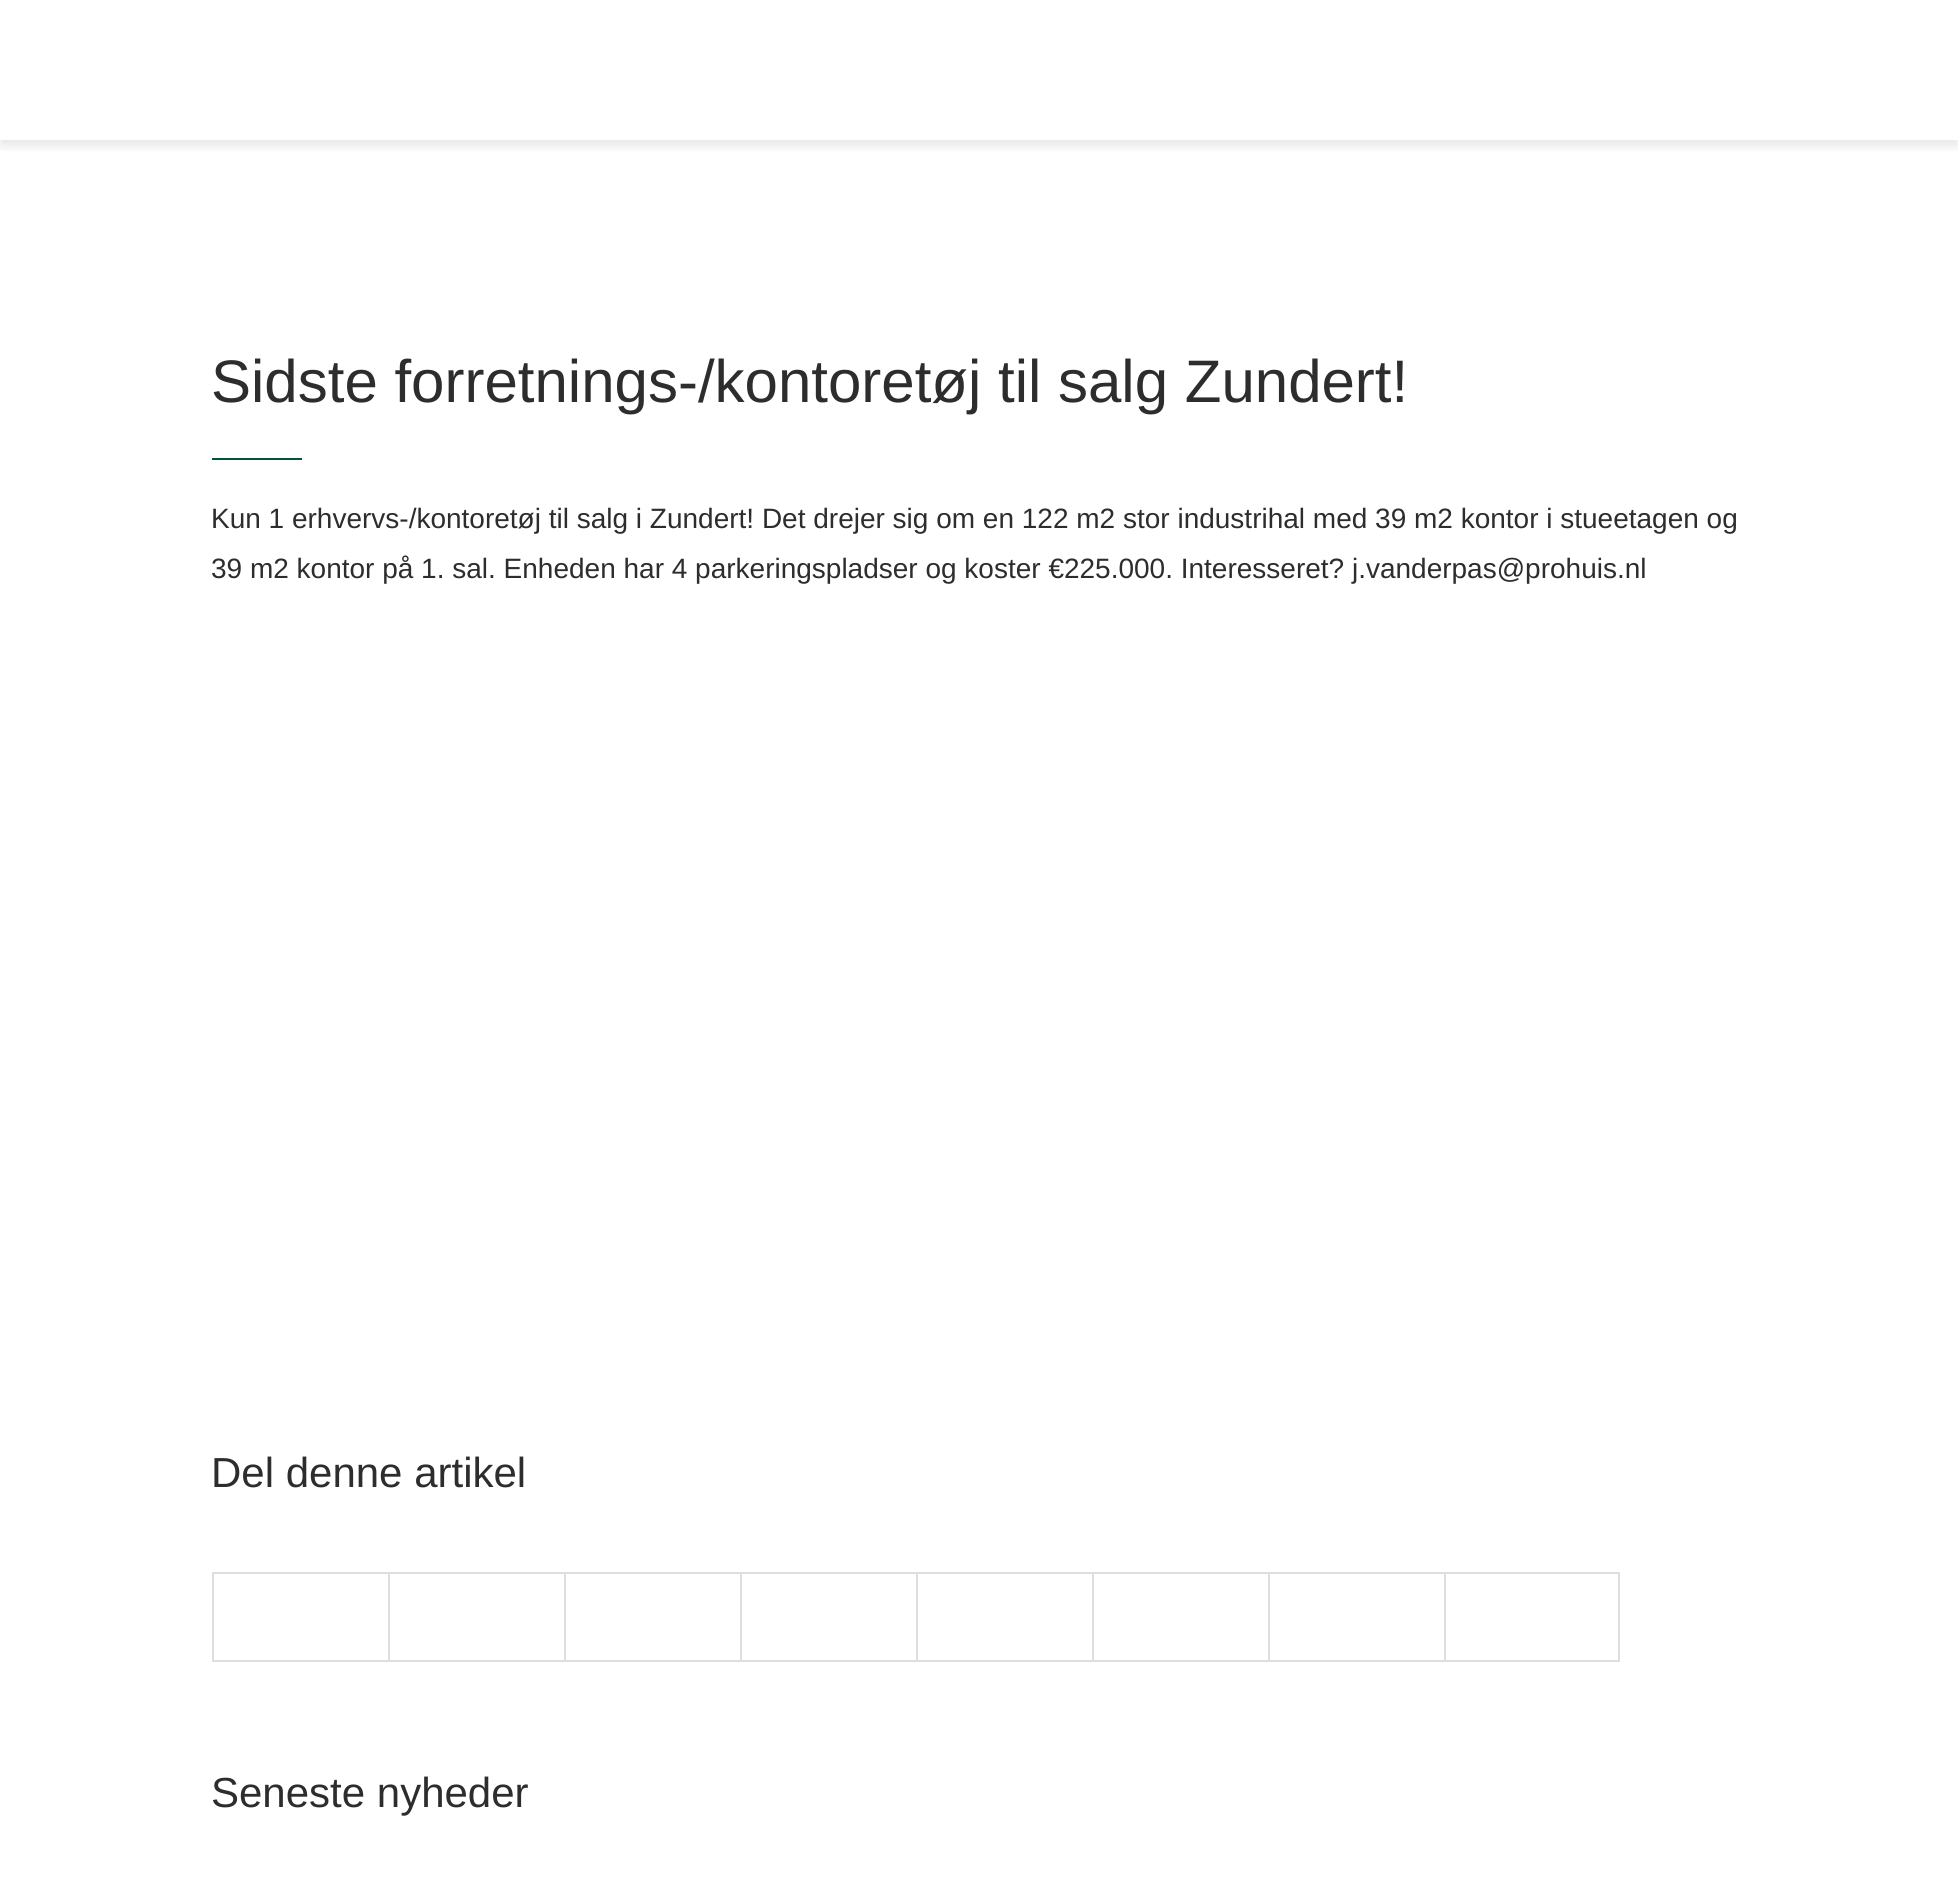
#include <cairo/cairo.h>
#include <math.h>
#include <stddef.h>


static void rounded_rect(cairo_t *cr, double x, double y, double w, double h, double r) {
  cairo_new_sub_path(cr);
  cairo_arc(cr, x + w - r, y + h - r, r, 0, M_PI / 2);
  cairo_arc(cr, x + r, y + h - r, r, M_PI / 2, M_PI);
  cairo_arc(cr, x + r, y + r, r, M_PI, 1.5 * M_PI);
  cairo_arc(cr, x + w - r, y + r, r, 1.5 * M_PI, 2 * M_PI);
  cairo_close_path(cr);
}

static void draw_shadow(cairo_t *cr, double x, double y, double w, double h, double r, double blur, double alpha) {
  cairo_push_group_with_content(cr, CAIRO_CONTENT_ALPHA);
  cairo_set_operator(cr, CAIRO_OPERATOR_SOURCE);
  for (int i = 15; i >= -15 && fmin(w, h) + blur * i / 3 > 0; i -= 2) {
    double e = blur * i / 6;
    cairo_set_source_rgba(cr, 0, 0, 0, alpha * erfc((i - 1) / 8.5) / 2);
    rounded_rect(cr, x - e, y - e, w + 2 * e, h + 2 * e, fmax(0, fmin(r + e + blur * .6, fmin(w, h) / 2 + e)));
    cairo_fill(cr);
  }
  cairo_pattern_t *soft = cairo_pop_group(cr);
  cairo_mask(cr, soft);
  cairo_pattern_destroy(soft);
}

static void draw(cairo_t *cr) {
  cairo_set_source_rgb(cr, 1, 1, 1);
  cairo_paint(cr);
  cairo_save(cr);
  cairo_rectangle(cr, 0, 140, 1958, 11);
  cairo_clip(cr);
  cairo_set_source_rgb(cr, 0, 0, 0);
  draw_shadow(cr, 0, 6, 1958, 140, 0, 6, 0.1);
  cairo_restore(cr);
  cairo_set_source_rgb(cr, 0, 83 / 255.0, 61 / 255.0);
  cairo_rectangle(cr, 212, 458, 90, 2);
  cairo_fill(cr);
  cairo_set_source_rgb(cr, 222 / 255.0, 222 / 255.0, 222 / 255.0);
  cairo_rectangle(cr, 212, 1572, 1232, 2);
  cairo_fill(cr);
  cairo_rectangle(cr, 212, 1660, 1232, 2);
  cairo_fill(cr);
  cairo_rectangle(cr, 212, 1572, 2, 90);
  cairo_fill(cr);
  cairo_rectangle(cr, 388, 1572, 2, 90);
  cairo_fill(cr);
  cairo_rectangle(cr, 564, 1572, 2, 90);
  cairo_fill(cr);
  cairo_rectangle(cr, 740, 1572, 2, 90);
  cairo_fill(cr);
  cairo_rectangle(cr, 916, 1572, 2, 90);
  cairo_fill(cr);
  cairo_rectangle(cr, 1092, 1572, 2, 90);
  cairo_fill(cr);
  cairo_rectangle(cr, 1268, 1572, 2, 90);
  cairo_fill(cr);
  cairo_rectangle(cr, 1445, 1573, 174, 88);
  cairo_stroke(cr);
  cairo_select_font_face(cr, "Liberation Sans", CAIRO_FONT_SLANT_NORMAL, CAIRO_FONT_WEIGHT_NORMAL);
  cairo_set_font_size(cr, 60);
  cairo_set_source_rgb(cr, 45 / 255.0, 45 / 255.0, 45 / 255.0);
  cairo_move_to(cr, 211, 402);
  cairo_show_text(cr, "Sidste forretnings-/kontoretøj til salg Zundert!");
  cairo_set_font_size(cr, 28);
  cairo_move_to(cr, 211, 528);
  cairo_show_text(cr, "Kun 1 erhvervs-/kontoretøj til salg i Zundert! Det drejer sig om en 122 m2 stor industrihal med 39 m2 kontor i stueetagen og");
  cairo_move_to(cr, 211, 578);
  cairo_show_text(cr, "39 m2 kontor på 1. sal. Enheden har 4 parkeringspladser og koster €225.000. Interesseret? j.vanderpas@prohuis.nl");
  cairo_set_font_size(cr, 42);
  cairo_move_to(cr, 211, 1487);
  cairo_show_text(cr, "Del denne artikel");
  cairo_move_to(cr, 211, 1807);
  cairo_show_text(cr, "Seneste nyheder");
}

int main(void) {
  cairo_surface_t *surface = cairo_image_surface_create(CAIRO_FORMAT_RGB24, 1958, 1879);
  cairo_t *cr = cairo_create(surface);
  cairo_font_options_t *options = cairo_font_options_create();
  cairo_font_options_set_hint_metrics(options, CAIRO_HINT_METRICS_OFF);
  cairo_font_options_set_hint_style(options, CAIRO_HINT_STYLE_NONE);
  cairo_set_font_options(cr, options);
  cairo_set_miter_limit(cr, 4);
  draw(cr);
  cairo_surface_write_to_png(surface, "out.png");
  cairo_font_options_destroy(options);
  cairo_destroy(cr);
  cairo_surface_destroy(surface);
  return 0;
}
